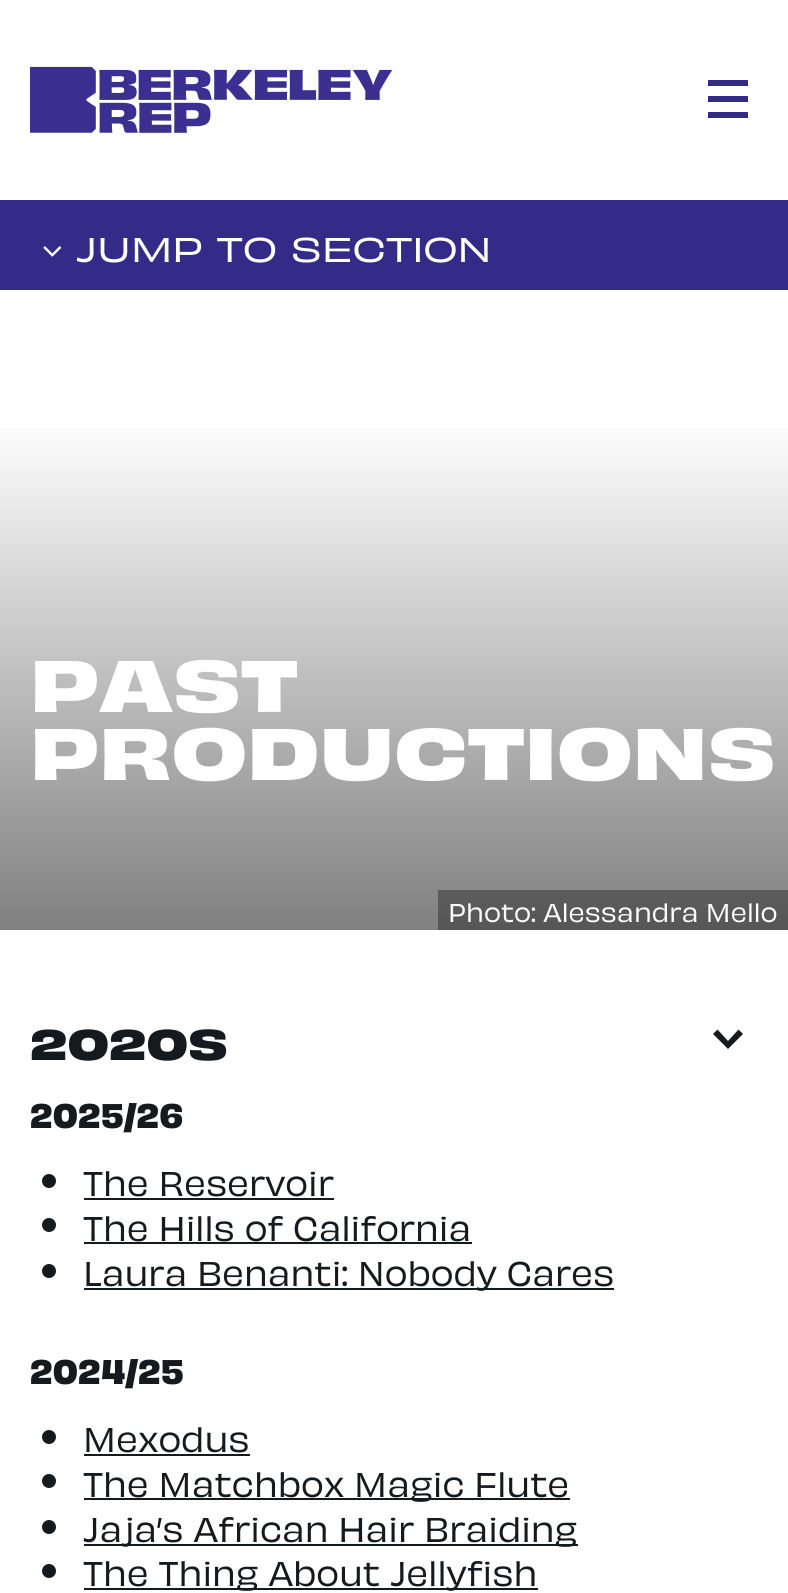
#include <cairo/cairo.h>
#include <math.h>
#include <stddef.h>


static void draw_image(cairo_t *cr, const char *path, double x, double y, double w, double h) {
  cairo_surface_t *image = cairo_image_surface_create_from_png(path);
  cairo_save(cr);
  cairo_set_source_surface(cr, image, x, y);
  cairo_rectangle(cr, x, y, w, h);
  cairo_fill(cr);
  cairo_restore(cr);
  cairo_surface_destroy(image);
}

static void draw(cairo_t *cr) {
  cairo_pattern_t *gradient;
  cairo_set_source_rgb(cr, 1, 1, 1);
  cairo_paint(cr);
  draw_image(cr, "images/1.png", 30, 66, 363, 67);
  cairo_set_source_rgb(cr, 52 / 255.0, 42 / 255.0, 135 / 255.0);
  cairo_rectangle(cr, 708, 80, 40, 6);
  cairo_fill(cr);
  cairo_rectangle(cr, 708, 96, 40, 6);
  cairo_fill(cr);
  cairo_rectangle(cr, 708, 112, 40, 6);
  cairo_fill(cr);
  cairo_rectangle(cr, 0, 200, 788, 90);
  cairo_fill(cr);
  draw_image(cr, "images/2.png", 43, 246, 19, 11);
  gradient = cairo_pattern_create_linear(394, 290, 394, 930);
  cairo_pattern_add_color_stop_rgba(gradient, 0.2, 1, 1, 1, 1);
  cairo_pattern_add_color_stop_rgba(gradient, 1, 128 / 255.0, 128 / 255.0, 128 / 255.0, 1);
  cairo_set_source(cr, gradient);
  cairo_pattern_destroy(gradient);
  cairo_rectangle(cr, 0, 428, 788, 502);
  cairo_fill(cr);
  gradient = cairo_pattern_create_linear(394, 290, 394, 930);
  cairo_pattern_add_color_stop_rgba(gradient, 0.2, 171 / 255.0, 171 / 255.0, 171 / 255.0, 1);
  cairo_pattern_add_color_stop_rgba(gradient, 1, 86 / 255.0, 86 / 255.0, 86 / 255.0, 1);
  cairo_set_source(cr, gradient);
  cairo_pattern_destroy(gradient);
  cairo_rectangle(cr, 438, 890, 350, 40);
  cairo_fill(cr);
  cairo_set_source_rgb(cr, 21 / 255.0, 26 / 255.0, 30 / 255.0);
  cairo_new_path(cr);
  cairo_move_to(cr, 728, 1049);
  cairo_line_to(cr, 713, 1034);
  cairo_line_to(cr, 717.5, 1029.5);
  cairo_line_to(cr, 728, 1041);
  cairo_line_to(cr, 738.5, 1029.5);
  cairo_line_to(cr, 743, 1034);
  cairo_close_path(cr);
  cairo_fill(cr);
  cairo_arc(cr, 49, 1181, 7, 0, 2 * M_PI);
  cairo_fill(cr);
  cairo_rectangle(cr, 84, 1198, 250, 2);
  cairo_fill(cr);
  cairo_arc(cr, 49, 1225, 7, 0, 2 * M_PI);
  cairo_fill(cr);
  cairo_rectangle(cr, 84, 1242, 388, 2);
  cairo_fill(cr);
  cairo_arc(cr, 49, 1271, 7, 0, 2 * M_PI);
  cairo_fill(cr);
  cairo_rectangle(cr, 84, 1288, 530, 2);
  cairo_fill(cr);
  cairo_arc(cr, 49, 1437, 7, 0, 2 * M_PI);
  cairo_fill(cr);
  cairo_rectangle(cr, 84, 1454, 166, 2);
  cairo_fill(cr);
  cairo_arc(cr, 49, 1481, 7, 0, 2 * M_PI);
  cairo_fill(cr);
  cairo_rectangle(cr, 84, 1498, 486, 2);
  cairo_fill(cr);
  cairo_arc(cr, 49, 1527, 7, 0, 2 * M_PI);
  cairo_fill(cr);
  cairo_rectangle(cr, 84, 1544, 494, 2);
  cairo_fill(cr);
  cairo_arc(cr, 49, 1571, 7, 0, 2 * M_PI);
  cairo_fill(cr);
  cairo_rectangle(cr, 84, 1588, 454, 2);
  cairo_fill(cr);
  cairo_select_font_face(cr, "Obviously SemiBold", CAIRO_FONT_SLANT_NORMAL, CAIRO_FONT_WEIGHT_NORMAL);
  cairo_set_font_size(cr, 32);
  cairo_set_source_rgb(cr, 1, 1, 1);
  cairo_move_to(cr, 76, 262);
  cairo_show_text(cr, "JUMP TO SECTION");
  cairo_select_font_face(cr, "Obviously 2", CAIRO_FONT_SLANT_NORMAL, CAIRO_FONT_WEIGHT_BOLD);
  cairo_set_font_size(cr, 68);
  cairo_move_to(cr, 30, 712);
  cairo_show_text(cr, "PAST");
  cairo_move_to(cr, 30, 780);
  cairo_show_text(cr, "PRODUCTIONS");
  cairo_select_font_face(cr, "Obviously Medium", CAIRO_FONT_SLANT_NORMAL, CAIRO_FONT_WEIGHT_NORMAL);
  cairo_set_font_size(cr, 24);
  cairo_move_to(cr, 448, 922);
  cairo_show_text(cr, "Photo: Alessandra Mello");
  cairo_select_font_face(cr, "Obviously 2", CAIRO_FONT_SLANT_NORMAL, CAIRO_FONT_WEIGHT_BOLD);
  cairo_set_font_size(cr, 40);
  cairo_set_source_rgb(cr, 21 / 255.0, 26 / 255.0, 30 / 255.0);
  cairo_move_to(cr, 30, 1060);
  cairo_show_text(cr, "2020S");
  cairo_select_font_face(cr, "Obviously", CAIRO_FONT_SLANT_NORMAL, CAIRO_FONT_WEIGHT_BOLD);
  cairo_set_font_size(cr, 32);
  cairo_move_to(cr, 30, 1128);
  cairo_show_text(cr, "2025/26");
  cairo_select_font_face(cr, "Obviously Medium", CAIRO_FONT_SLANT_NORMAL, CAIRO_FONT_WEIGHT_NORMAL);
  cairo_move_to(cr, 83, 1196);
  cairo_show_text(cr, "The Reservoir");
  cairo_move_to(cr, 83, 1241);
  cairo_show_text(cr, "The Hills of California");
  cairo_move_to(cr, 83, 1286);
  cairo_show_text(cr, "Laura Benanti: Nobody Cares");
  cairo_select_font_face(cr, "Obviously", CAIRO_FONT_SLANT_NORMAL, CAIRO_FONT_WEIGHT_BOLD);
  cairo_move_to(cr, 30, 1384);
  cairo_show_text(cr, "2024/25");
  cairo_select_font_face(cr, "Obviously Medium", CAIRO_FONT_SLANT_NORMAL, CAIRO_FONT_WEIGHT_NORMAL);
  cairo_move_to(cr, 83, 1452);
  cairo_show_text(cr, "Mexodus");
  cairo_move_to(cr, 83, 1497);
  cairo_show_text(cr, "The Matchbox Magic Flute");
  cairo_move_to(cr, 83, 1542);
  cairo_show_text(cr, "Jaja’s African Hair Braiding");
  cairo_move_to(cr, 83, 1586);
  cairo_show_text(cr, "The Thing About Jellyfish");
}

int main(void) {
  cairo_surface_t *surface = cairo_image_surface_create(CAIRO_FORMAT_RGB24, 788, 1593);
  cairo_t *cr = cairo_create(surface);
  cairo_font_options_t *options = cairo_font_options_create();
  cairo_font_options_set_hint_metrics(options, CAIRO_HINT_METRICS_OFF);
  cairo_font_options_set_hint_style(options, CAIRO_HINT_STYLE_NONE);
  cairo_set_font_options(cr, options);
  cairo_set_miter_limit(cr, 4);
  draw(cr);
  cairo_surface_write_to_png(surface, "out.png");
  cairo_font_options_destroy(options);
  cairo_destroy(cr);
  cairo_surface_destroy(surface);
  return 0;
}
